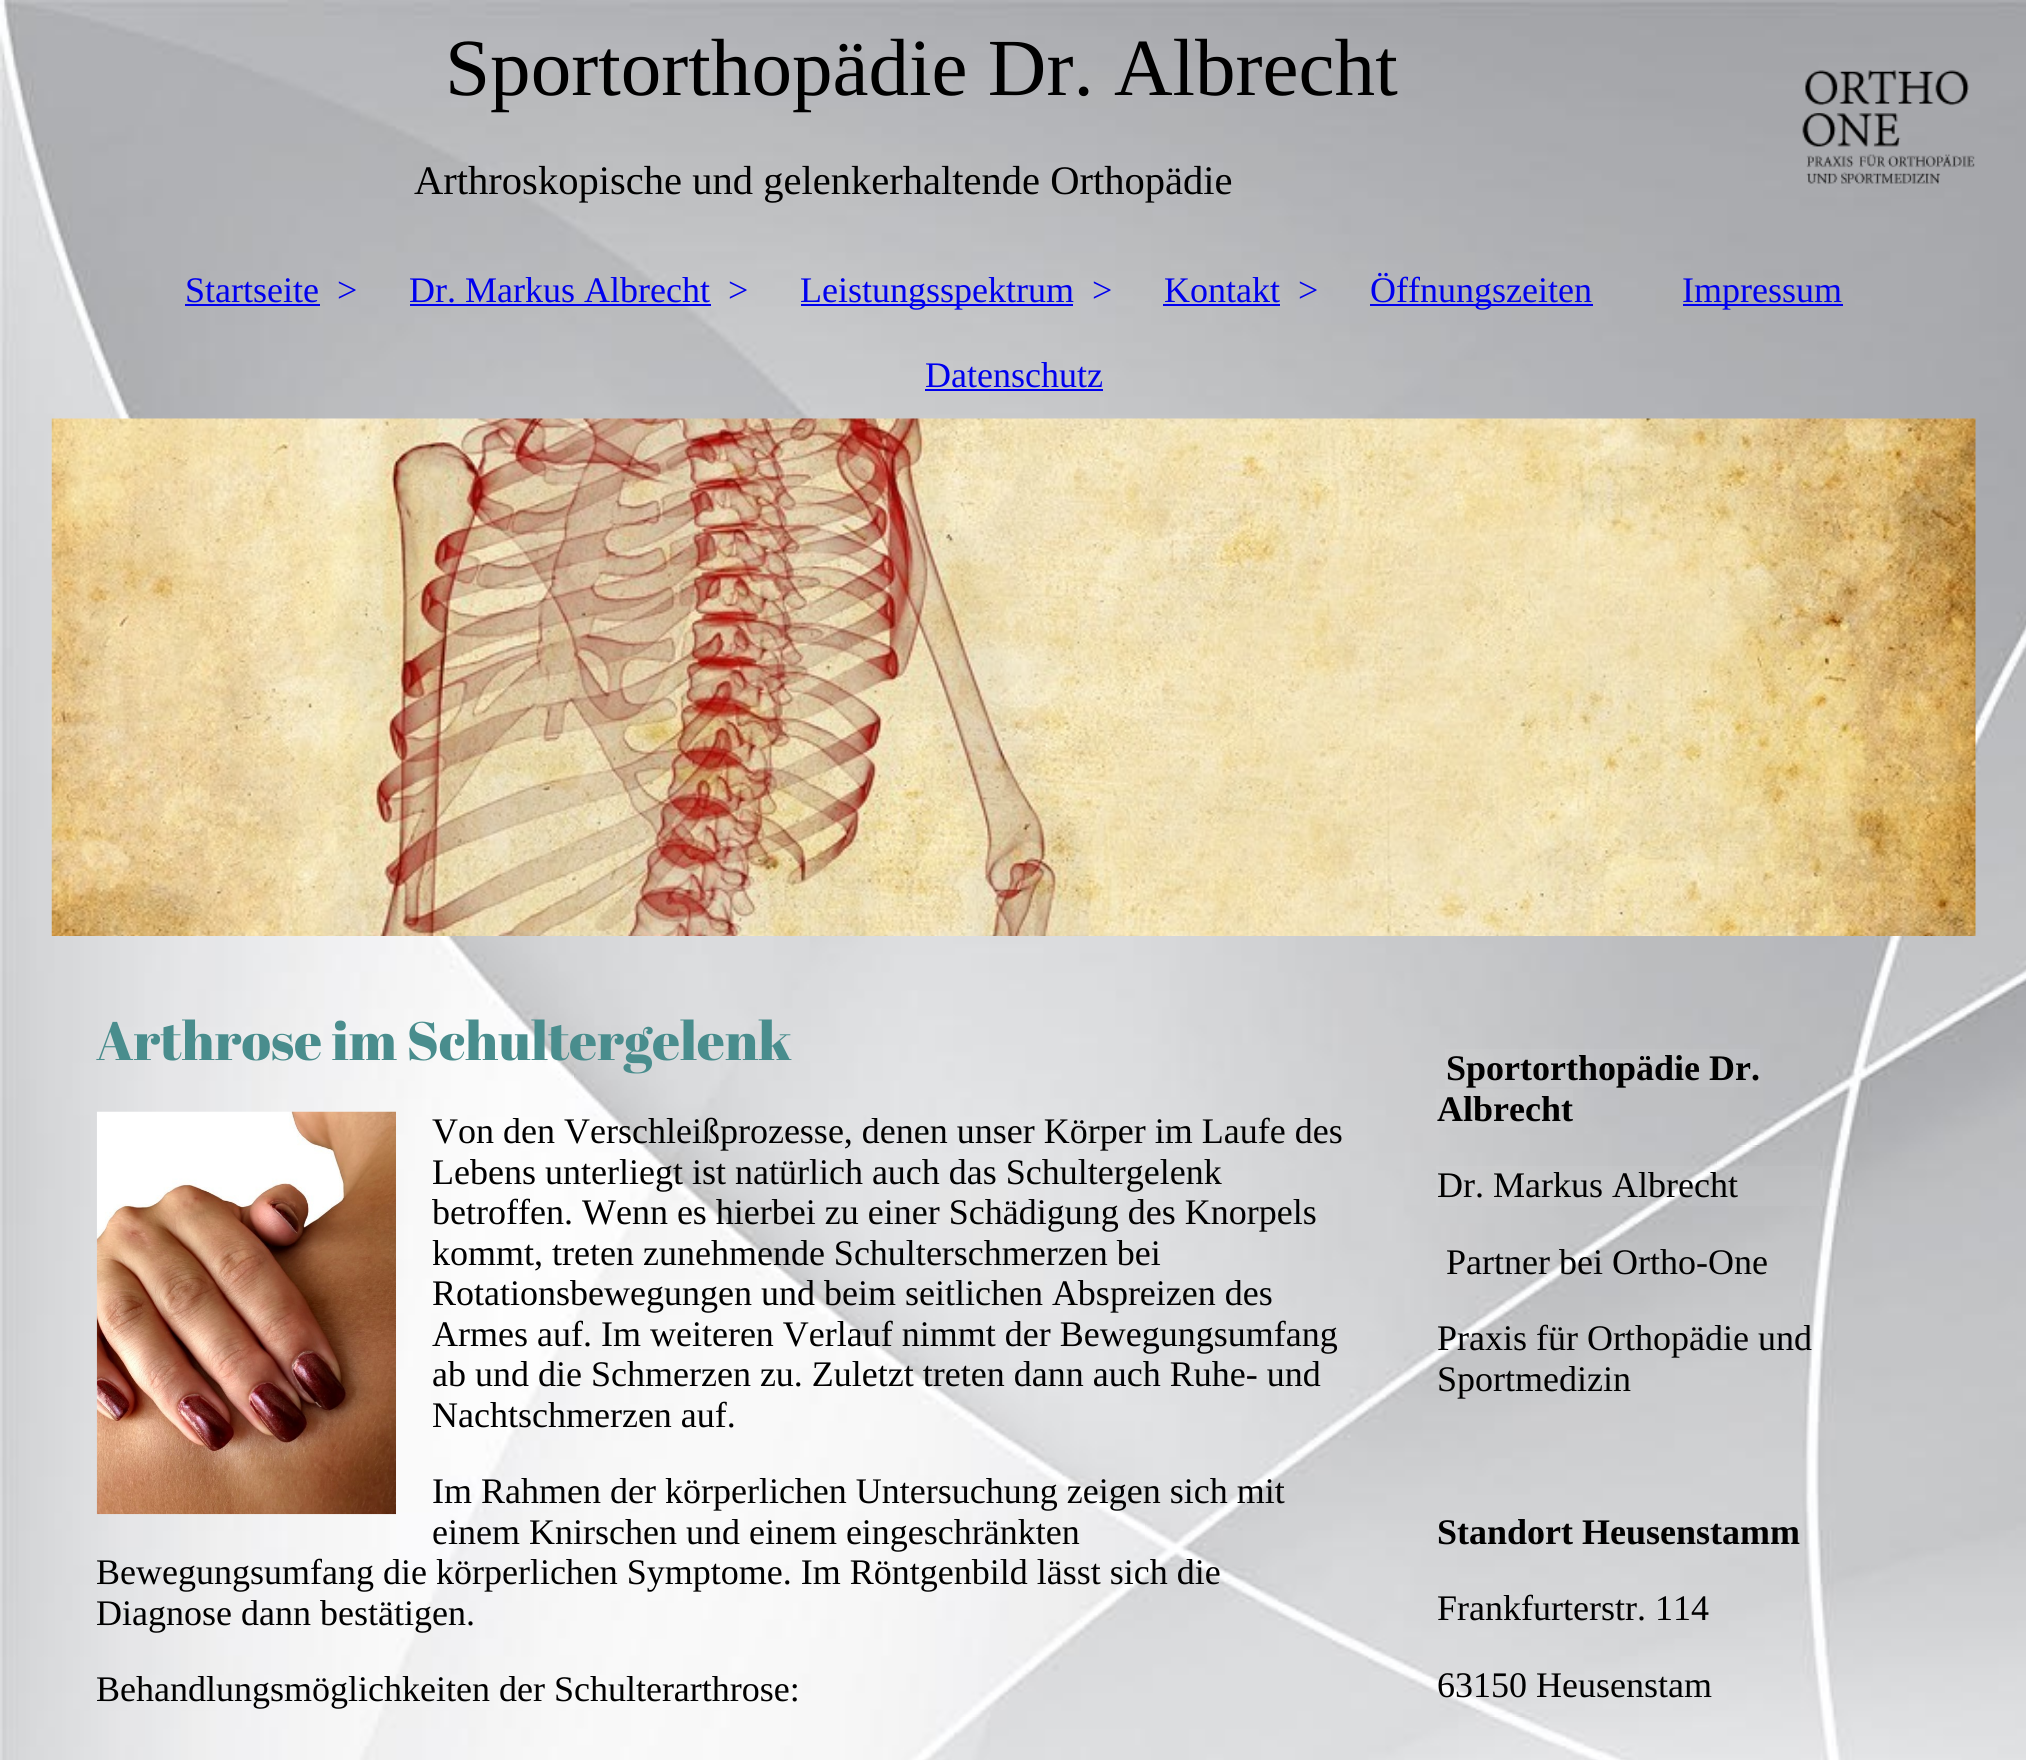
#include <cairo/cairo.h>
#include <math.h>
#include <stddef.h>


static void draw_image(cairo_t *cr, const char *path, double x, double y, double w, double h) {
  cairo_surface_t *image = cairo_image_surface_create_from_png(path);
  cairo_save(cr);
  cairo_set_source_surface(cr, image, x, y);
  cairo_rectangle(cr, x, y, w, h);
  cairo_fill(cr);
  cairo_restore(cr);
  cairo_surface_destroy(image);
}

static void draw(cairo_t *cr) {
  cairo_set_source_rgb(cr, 1, 1, 1);
  cairo_paint(cr);
  draw_image(cr, "images/1.png", 0, 0, 2026, 1760);
  draw_image(cr, "images/2.png", 1802, 70, 173, 114);
  cairo_set_source_rgb(cr, 0, 0, 238 / 255.0);
  cairo_rectangle(cr, 185, 304, 135, 2);
  cairo_fill(cr);
  cairo_rectangle(cr, 410, 304, 301, 2);
  cairo_fill(cr);
  cairo_rectangle(cr, 801, 304, 272, 2);
  cairo_fill(cr);
  cairo_rectangle(cr, 1163, 304, 117, 2);
  cairo_fill(cr);
  cairo_rectangle(cr, 1370, 304, 223, 2);
  cairo_fill(cr);
  cairo_rectangle(cr, 1683, 304, 160, 2);
  cairo_fill(cr);
  cairo_rectangle(cr, 925, 389, 178, 2);
  cairo_fill(cr);
  draw_image(cr, "images/3.png", 51, 418, 1925, 518);
  draw_image(cr, "images/4.png", 96, 1111, 300, 404);
  cairo_set_source_rgba(cr, 1, 1, 1, 0.05);
  cairo_rectangle(cr, 1445, 1049, 315, 38);
  cairo_fill(cr);
  cairo_rectangle(cr, 1436, 1089, 137, 38);
  cairo_fill(cr);
  cairo_rectangle(cr, 1436, 1166, 405, 40);
  cairo_fill(cr);
  cairo_select_font_face(cr, "Liberation Serif", CAIRO_FONT_SLANT_NORMAL, CAIRO_FONT_WEIGHT_NORMAL);
  cairo_set_font_size(cr, 81.1);
  cairo_set_source_rgb(cr, 0, 0, 0);
  cairo_move_to(cr, 445, 95);
  cairo_show_text(cr, "Sportorthopädie Dr. Albrecht");
  cairo_set_font_size(cr, 40.55);
  cairo_move_to(cr, 414, 194);
  cairo_show_text(cr, "Arthroskopische und gelenkerhaltende Orthopädie");
  cairo_set_font_size(cr, 36);
  cairo_set_source_rgb(cr, 0, 0, 238 / 255.0);
  cairo_move_to(cr, 185, 302);
  cairo_show_text(cr, "Startseite");
  cairo_move_to(cr, 337, 302);
  cairo_show_text(cr, ">");
  cairo_move_to(cr, 409, 302);
  cairo_show_text(cr, "Dr. Markus Albrecht");
  cairo_move_to(cr, 728, 302);
  cairo_show_text(cr, ">");
  cairo_move_to(cr, 800, 302);
  cairo_show_text(cr, "Leistungsspektrum");
  cairo_move_to(cr, 1092, 302);
  cairo_show_text(cr, ">");
  cairo_move_to(cr, 1164, 302);
  cairo_show_text(cr, "Kontakt");
  cairo_move_to(cr, 1298, 302);
  cairo_show_text(cr, ">");
  cairo_move_to(cr, 1370, 302);
  cairo_show_text(cr, "Öffnungszeiten");
  cairo_move_to(cr, 1682, 302);
  cairo_show_text(cr, "Impressum");
  cairo_move_to(cr, 925, 387);
  cairo_show_text(cr, "Datenschutz");
  cairo_select_font_face(cr, "Abril Fatface", CAIRO_FONT_SLANT_NORMAL, CAIRO_FONT_WEIGHT_NORMAL);
  cairo_set_font_size(cr, 54);
  cairo_set_source_rgb(cr, 73 / 255.0, 141 / 255.0, 141 / 255.0);
  cairo_move_to(cr, 96, 1060);
  cairo_show_text(cr, "Arthrose im Schultergelenk");
  cairo_select_font_face(cr, "Liberation Serif", CAIRO_FONT_SLANT_NORMAL, CAIRO_FONT_WEIGHT_NORMAL);
  cairo_set_font_size(cr, 36);
  cairo_set_source_rgb(cr, 0, 0, 0);
  cairo_move_to(cr, 432, 1143);
  cairo_show_text(cr, "Von den Verschleißprozesse, denen unser Körper im Laufe des");
  cairo_move_to(cr, 432, 1184);
  cairo_show_text(cr, "Lebens unterliegt ist natürlich auch das Schultergelenk");
  cairo_move_to(cr, 432, 1224);
  cairo_show_text(cr, "betroffen. Wenn es hierbei zu einer Schädigung des Knorpels");
  cairo_move_to(cr, 432, 1265);
  cairo_show_text(cr, "kommt, treten zunehmende Schulterschmerzen bei");
  cairo_move_to(cr, 432, 1305);
  cairo_show_text(cr, "Rotationsbewegungen und beim seitlichen Abspreizen des");
  cairo_move_to(cr, 432, 1346);
  cairo_show_text(cr, "Armes auf. Im weiteren Verlauf nimmt der Bewegungsumfang");
  cairo_move_to(cr, 432, 1386);
  cairo_show_text(cr, "ab und die Schmerzen zu. Zuletzt treten dann auch Ruhe- und");
  cairo_move_to(cr, 432, 1427);
  cairo_show_text(cr, "Nachtschmerzen auf.");
  cairo_move_to(cr, 432, 1503);
  cairo_show_text(cr, "Im Rahmen der körperlichen Untersuchung zeigen sich mit");
  cairo_move_to(cr, 432, 1544);
  cairo_show_text(cr, "einem Knirschen und einem eingeschränkten");
  cairo_move_to(cr, 96, 1584);
  cairo_show_text(cr, "Bewegungsumfang die körperlichen Symptome. Im Röntgenbild lässt sich die");
  cairo_move_to(cr, 96, 1625);
  cairo_show_text(cr, "Diagnose dann bestätigen.");
  cairo_move_to(cr, 96, 1701);
  cairo_show_text(cr, "Behandlungsmöglichkeiten der Schulterarthrose:");
  cairo_select_font_face(cr, "Liberation Serif", CAIRO_FONT_SLANT_NORMAL, CAIRO_FONT_WEIGHT_BOLD);
  cairo_move_to(cr, 1446, 1080);
  cairo_show_text(cr, "Sportorthopädie Dr.");
  cairo_move_to(cr, 1437, 1121);
  cairo_show_text(cr, "Albrecht");
  cairo_select_font_face(cr, "Liberation Serif", CAIRO_FONT_SLANT_NORMAL, CAIRO_FONT_WEIGHT_NORMAL);
  cairo_move_to(cr, 1437, 1197);
  cairo_show_text(cr, "Dr. Markus Albrecht");
  cairo_move_to(cr, 1446, 1274);
  cairo_show_text(cr, "Partner bei Ortho-One");
  cairo_move_to(cr, 1437, 1350);
  cairo_show_text(cr, "Praxis für Orthopädie und");
  cairo_move_to(cr, 1437, 1391);
  cairo_show_text(cr, "Sportmedizin");
  cairo_select_font_face(cr, "Liberation Serif", CAIRO_FONT_SLANT_NORMAL, CAIRO_FONT_WEIGHT_BOLD);
  cairo_move_to(cr, 1437, 1544);
  cairo_show_text(cr, "Standort Heusenstamm");
  cairo_select_font_face(cr, "Liberation Serif", CAIRO_FONT_SLANT_NORMAL, CAIRO_FONT_WEIGHT_NORMAL);
  cairo_move_to(cr, 1437, 1620);
  cairo_show_text(cr, "Frankfurterstr. 114");
  cairo_move_to(cr, 1437, 1697);
  cairo_show_text(cr, "63150 Heusenstam");
}

int main(void) {
  cairo_surface_t *surface = cairo_image_surface_create(CAIRO_FORMAT_RGB24, 2026, 1760);
  cairo_t *cr = cairo_create(surface);
  cairo_font_options_t *options = cairo_font_options_create();
  cairo_font_options_set_hint_metrics(options, CAIRO_HINT_METRICS_OFF);
  cairo_font_options_set_hint_style(options, CAIRO_HINT_STYLE_NONE);
  cairo_set_font_options(cr, options);
  cairo_set_miter_limit(cr, 4);
  draw(cr);
  cairo_surface_write_to_png(surface, "out.png");
  cairo_font_options_destroy(options);
  cairo_destroy(cr);
  cairo_surface_destroy(surface);
  return 0;
}
